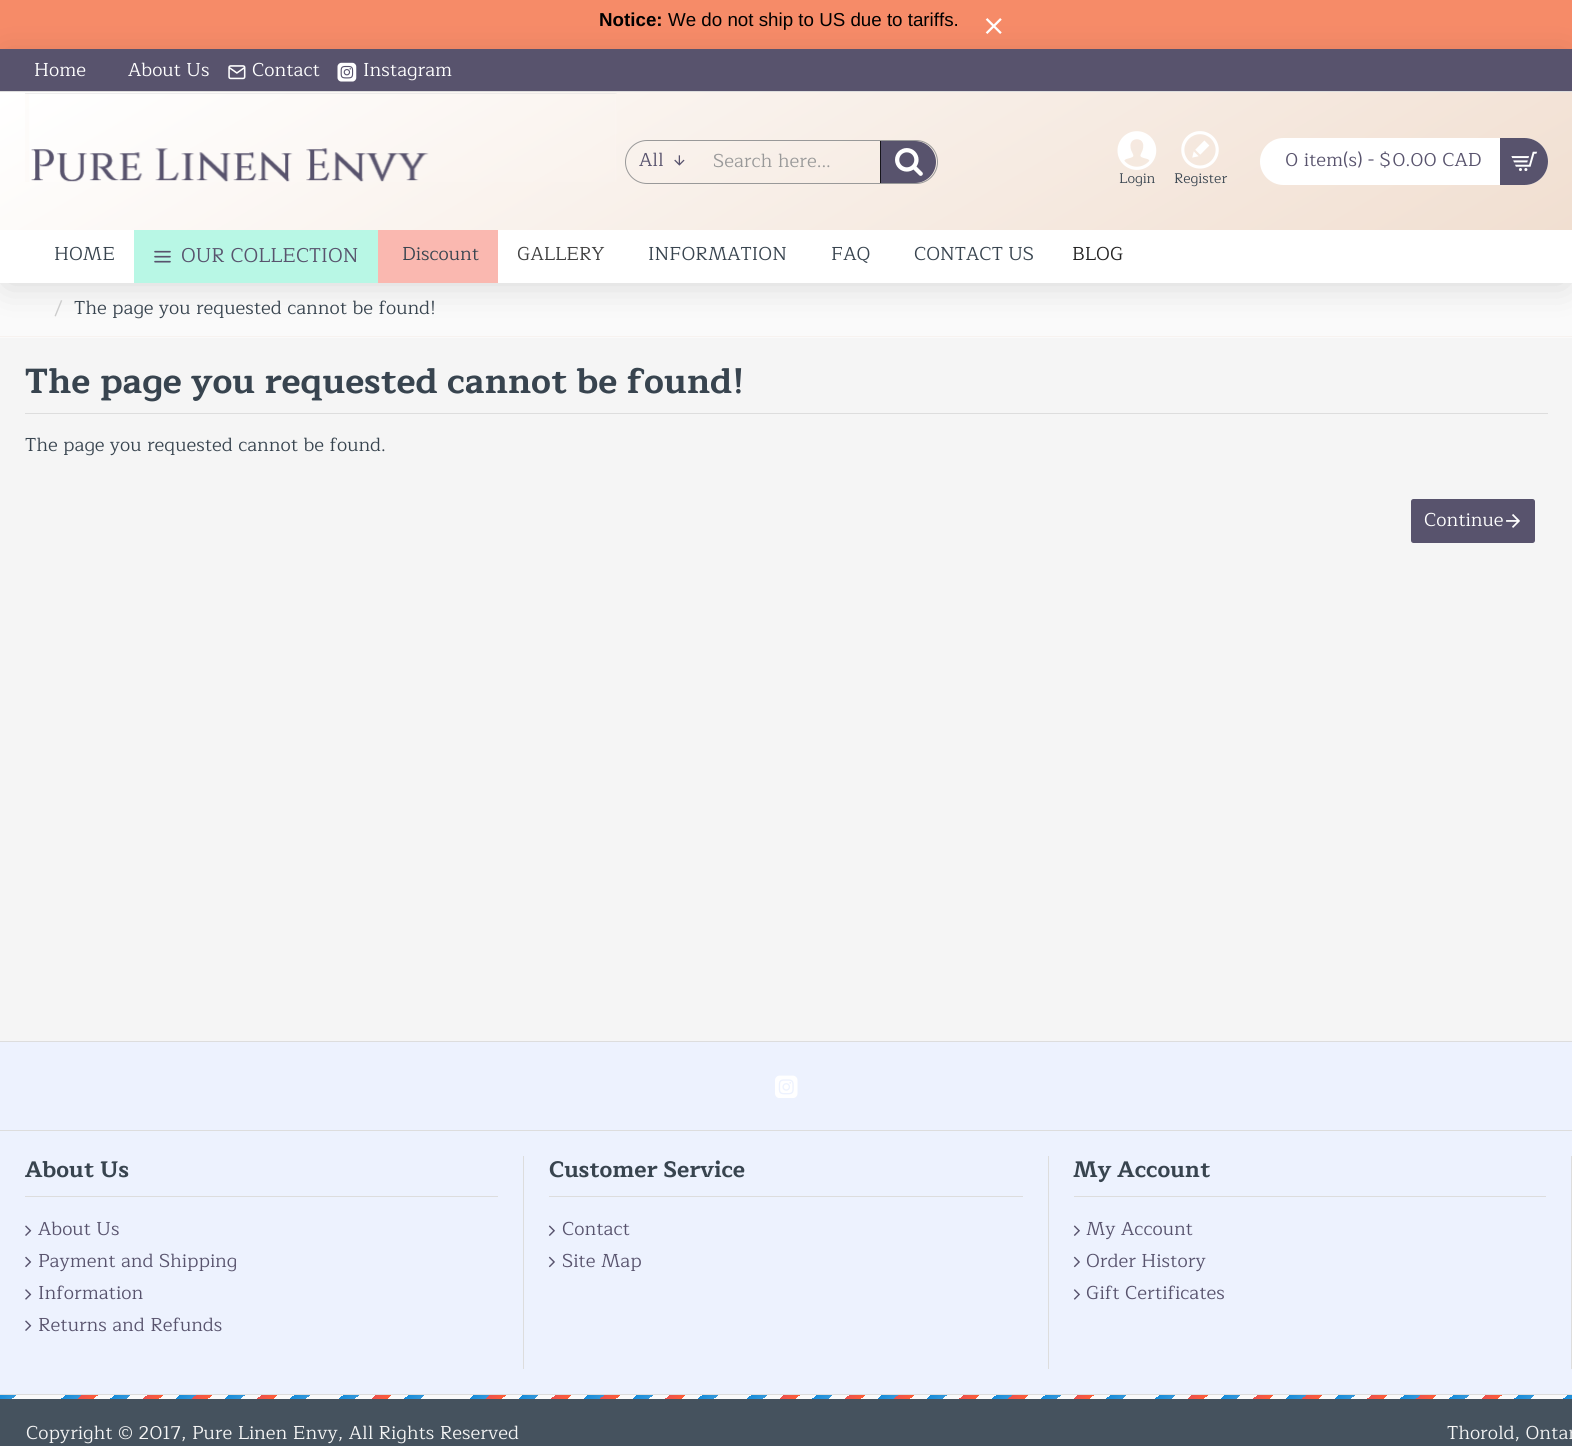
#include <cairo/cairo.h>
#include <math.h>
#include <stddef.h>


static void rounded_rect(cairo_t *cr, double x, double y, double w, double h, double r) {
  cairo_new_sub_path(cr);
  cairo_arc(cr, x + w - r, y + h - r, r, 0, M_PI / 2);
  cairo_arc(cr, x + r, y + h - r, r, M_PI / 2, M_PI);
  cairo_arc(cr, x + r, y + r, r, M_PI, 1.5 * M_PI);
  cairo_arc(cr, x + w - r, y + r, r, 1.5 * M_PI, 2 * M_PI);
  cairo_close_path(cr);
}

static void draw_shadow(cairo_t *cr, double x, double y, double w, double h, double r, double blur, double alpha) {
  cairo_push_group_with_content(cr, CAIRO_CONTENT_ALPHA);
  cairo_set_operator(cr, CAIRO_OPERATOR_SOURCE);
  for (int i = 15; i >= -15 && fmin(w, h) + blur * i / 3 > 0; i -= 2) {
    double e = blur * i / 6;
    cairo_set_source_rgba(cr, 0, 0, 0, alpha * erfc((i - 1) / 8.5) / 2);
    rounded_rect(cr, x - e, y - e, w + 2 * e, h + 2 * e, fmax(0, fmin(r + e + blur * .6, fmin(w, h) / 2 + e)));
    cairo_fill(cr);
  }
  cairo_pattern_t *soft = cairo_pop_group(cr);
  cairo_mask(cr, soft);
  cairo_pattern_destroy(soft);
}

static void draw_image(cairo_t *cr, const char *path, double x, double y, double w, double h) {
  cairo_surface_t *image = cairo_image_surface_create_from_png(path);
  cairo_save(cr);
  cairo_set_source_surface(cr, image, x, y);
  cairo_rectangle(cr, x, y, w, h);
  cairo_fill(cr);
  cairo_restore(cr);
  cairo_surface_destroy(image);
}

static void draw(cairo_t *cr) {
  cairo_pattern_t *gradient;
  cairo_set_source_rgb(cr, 246 / 255.0, 139 / 255.0, 104 / 255.0);
  cairo_paint(cr);
  draw_image(cr, "images/1.png", 985, 18, 17, 16);
  cairo_set_source_rgb(cr, 245 / 255.0, 245 / 255.0, 245 / 255.0);
  cairo_rectangle(cr, 0, 338, 1572, 703);
  cairo_fill(cr);
  cairo_set_source_rgb(cr, 250 / 255.0, 250 / 255.0, 250 / 255.0);
  cairo_rectangle(cr, 0, 283, 1572, 55);
  cairo_fill(cr);
  cairo_set_source_rgb(cr, 247 / 255.0, 242 / 255.0, 239 / 255.0);
  cairo_rectangle(cr, 0, 336, 1572, 1);
  cairo_fill(cr);
  cairo_set_source_rgb(cr, 0, 0, 0);
  draw_shadow(cr, 6, 61, 1560, 222, 0, 19, 0.15);
  gradient = cairo_pattern_create_linear(539, -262, 1033, 594);
  cairo_pattern_add_color_stop_rgba(gradient, 0, 1, 1, 1, 1);
  cairo_pattern_add_color_stop_rgba(gradient, 1, 241 / 255.0, 223 / 255.0, 209 / 255.0, 1);
  cairo_set_source(cr, gradient);
  cairo_pattern_destroy(gradient);
  cairo_rectangle(cr, 0, 92, 1572, 1);
  cairo_fill(cr);
  cairo_set_source_rgb(cr, 88 / 255.0, 83 / 255.0, 109 / 255.0);
  cairo_rectangle(cr, 0, 49, 1572, 42);
  cairo_fill(cr);
  cairo_set_source_rgb(cr, 221 / 255.0, 221 / 255.0, 221 / 255.0);
  cairo_rectangle(cr, 0, 91, 1572, 1);
  cairo_fill(cr);
  draw_image(cr, "images/2.png", 228, 65, 18, 15);
  draw_image(cr, "images/3.png", 337, 62, 20, 20);
  gradient = cairo_pattern_create_linear(560, -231, 1013, 553);
  cairo_pattern_add_color_stop_rgba(gradient, 0, 1, 1, 1, 1);
  cairo_pattern_add_color_stop_rgba(gradient, 1, 241 / 255.0, 223 / 255.0, 209 / 255.0, 1);
  cairo_set_source(cr, gradient);
  cairo_pattern_destroy(gradient);
  cairo_rectangle(cr, 0, 93, 1572, 137);
  cairo_fill(cr);
  draw_image(cr, "images/4.png", 25, 93, 592, 89);
  rounded_rect(cr, 625.5, 140.5, 312, 43, 21.5);
  cairo_set_source_rgb(cr, 153 / 255.0, 153 / 255.0, 153 / 255.0);
  cairo_set_line_width(cr, 1);
  cairo_stroke(cr);
  draw_image(cr, "images/5.png", 674, 155, 11, 11);
  cairo_set_source_rgb(cr, 88 / 255.0, 83 / 255.0, 109 / 255.0);
  cairo_new_path(cr);
  cairo_move_to(cr, 880, 141);
  cairo_line_to(cr, 915, 141);
  cairo_curve_to(cr, 926.5, 141, 936, 150.5, 936, 162);
  cairo_curve_to(cr, 936, 173.5, 926.5, 183, 915, 183);
  cairo_line_to(cr, 880, 183);
  cairo_close_path(cr);
  cairo_fill(cr);
  cairo_set_source_rgb(cr, 22 / 255.0, 21 / 255.0, 27 / 255.0);
  cairo_rectangle(cr, 880, 141, 1, 42);
  cairo_fill(cr);
  draw_image(cr, "images/6.png", 895, 148, 28, 28);
  cairo_set_source_rgb(cr, 1, 1, 1);
  rounded_rect(cr, 1260, 138, 288, 47, 23.5);
  cairo_fill(cr);
  cairo_set_source_rgb(cr, 88 / 255.0, 83 / 255.0, 109 / 255.0);
  cairo_new_path(cr);
  cairo_move_to(cr, 1500, 138);
  cairo_line_to(cr, 1524.5, 138);
  cairo_curve_to(cr, 1537.5, 138, 1548, 148.5, 1548, 161.5);
  cairo_curve_to(cr, 1548, 174.5, 1537.5, 185, 1524.5, 185);
  cairo_line_to(cr, 1500, 185);
  cairo_close_path(cr);
  cairo_fill(cr);
  draw_image(cr, "images/7.png", 1511, 151, 27, 21);
  draw_image(cr, "images/8.png", 1117, 131, 40, 39);
  draw_image(cr, "images/9.png", 1181, 131, 38, 38);
  cairo_set_source_rgb(cr, 1, 1, 1);
  cairo_rectangle(cr, 0, 230, 1572, 53);
  cairo_fill(cr);
  cairo_set_source_rgb(cr, 184 / 255.0, 247 / 255.0, 229 / 255.0);
  cairo_rectangle(cr, 134, 230, 244, 53);
  cairo_fill(cr);
  draw_image(cr, "images/10.png", 154, 250, 17, 13);
  cairo_set_source_rgb(cr, 250 / 255.0, 184 / 255.0, 176 / 255.0);
  cairo_rectangle(cr, 378, 230, 120, 53);
  cairo_fill(cr);
  cairo_set_source_rgb(cr, 221 / 255.0, 221 / 255.0, 221 / 255.0);
  cairo_rectangle(cr, 25, 413, 1523, 1);
  cairo_fill(cr);
  cairo_set_source_rgb(cr, 88 / 255.0, 83 / 255.0, 109 / 255.0);
  rounded_rect(cr, 1411, 499, 124, 44, 2.5);
  cairo_fill(cr);
  draw_image(cr, "images/11.png", 1506, 514, 14, 14);
  cairo_set_source_rgb(cr, 237 / 255.0, 242 / 255.0, 254 / 255.0);
  cairo_rectangle(cr, 0, 1042, 1572, 352);
  cairo_fill(cr);
  cairo_set_source_rgb(cr, 221 / 255.0, 221 / 255.0, 221 / 255.0);
  cairo_rectangle(cr, 0, 1041, 1572, 1);
  cairo_fill(cr);
  cairo_rectangle(cr, 0, 1130, 1572, 1);
  cairo_fill(cr);
  draw_image(cr, "images/12.png", 775, 1075, 23, 23);
  cairo_rectangle(cr, 523, 1156, 1, 213);
  cairo_fill(cr);
  cairo_rectangle(cr, 25, 1196, 473, 1);
  cairo_fill(cr);
  draw_image(cr, "images/13.png", 25, 1225, 7, 11);
  draw_image(cr, "images/14.png", 25, 1256, 7, 12);
  draw_image(cr, "images/15.png", 25, 1289, 7, 11);
  draw_image(cr, "images/13.png", 25, 1320, 7, 11);
  cairo_rectangle(cr, 1048, 1156, 1, 213);
  cairo_fill(cr);
  cairo_rectangle(cr, 549, 1196, 474, 1);
  cairo_fill(cr);
  draw_image(cr, "images/16.png", 548, 1225, 7, 11);
  draw_image(cr, "images/17.png", 548, 1256, 7, 12);
  cairo_rectangle(cr, 1571, 1156, 1, 213);
  cairo_fill(cr);
  cairo_rectangle(cr, 1074, 1196, 472, 1);
  cairo_fill(cr);
  draw_image(cr, "images/16.png", 1073, 1225, 7, 11);
  draw_image(cr, "images/17.png", 1073, 1256, 7, 12);
  draw_image(cr, "images/18.png", 1073, 1289, 7, 11);
  cairo_rectangle(cr, 0, 1394, 1572, 1);
  cairo_fill(cr);
  cairo_set_source_rgb(cr, 69 / 255.0, 82 / 255.0, 94 / 255.0);
  cairo_rectangle(cr, 0, 1399, 1572, 47);
  cairo_fill(cr);
  gradient = cairo_pattern_create_linear(460, 1009, 1135, 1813);
  cairo_pattern_add_color_stop_rgba(gradient, 0, 22 / 255.0, 140 / 255.0, 218 / 255.0, 1);
  cairo_pattern_add_color_stop_rgba(gradient, 0.01, 52 / 255.0, 152 / 255.0, 219 / 255.0, 1);
  cairo_pattern_add_color_stop_rgba(gradient, 0.01, 250 / 255.0, 250 / 255.0, 250 / 255.0, 1);
  cairo_pattern_add_color_stop_rgba(gradient, 0.02, 250 / 255.0, 250 / 255.0, 250 / 255.0, 1);
  cairo_pattern_add_color_stop_rgba(gradient, 0.02, 235 / 255.0, 82 / 255.0, 78 / 255.0, 1);
  cairo_pattern_add_color_stop_rgba(gradient, 0.02, 1, 94 / 255.0, 55 / 255.0, 1);
  cairo_pattern_add_color_stop_rgba(gradient, 0.02, 250 / 255.0, 250 / 255.0, 250 / 255.0, 1);
  cairo_pattern_add_color_stop_rgba(gradient, 0.04, 250 / 255.0, 250 / 255.0, 250 / 255.0, 1);
  cairo_pattern_add_color_stop_rgba(gradient, 0.04, 22 / 255.0, 140 / 255.0, 218 / 255.0, 1);
  cairo_pattern_add_color_stop_rgba(gradient, 0.05, 52 / 255.0, 152 / 255.0, 219 / 255.0, 1);
  cairo_pattern_add_color_stop_rgba(gradient, 0.05, 250 / 255.0, 250 / 255.0, 250 / 255.0, 1);
  cairo_pattern_add_color_stop_rgba(gradient, 0.05, 250 / 255.0, 250 / 255.0, 250 / 255.0, 1);
  cairo_pattern_add_color_stop_rgba(gradient, 0.05, 235 / 255.0, 82 / 255.0, 78 / 255.0, 1);
  cairo_pattern_add_color_stop_rgba(gradient, 0.06, 1, 94 / 255.0, 55 / 255.0, 1);
  cairo_pattern_add_color_stop_rgba(gradient, 0.06, 250 / 255.0, 250 / 255.0, 250 / 255.0, 1);
  cairo_pattern_add_color_stop_rgba(gradient, 0.07, 250 / 255.0, 250 / 255.0, 250 / 255.0, 1);
  cairo_pattern_add_color_stop_rgba(gradient, 0.07, 22 / 255.0, 140 / 255.0, 218 / 255.0, 1);
  cairo_pattern_add_color_stop_rgba(gradient, 0.08, 52 / 255.0, 152 / 255.0, 219 / 255.0, 1);
  cairo_pattern_add_color_stop_rgba(gradient, 0.08, 250 / 255.0, 250 / 255.0, 250 / 255.0, 1);
  cairo_pattern_add_color_stop_rgba(gradient, 0.09, 250 / 255.0, 250 / 255.0, 250 / 255.0, 1);
  cairo_pattern_add_color_stop_rgba(gradient, 0.09, 235 / 255.0, 82 / 255.0, 78 / 255.0, 1);
  cairo_pattern_add_color_stop_rgba(gradient, 0.1, 1, 94 / 255.0, 55 / 255.0, 1);
  cairo_pattern_add_color_stop_rgba(gradient, 0.1, 250 / 255.0, 250 / 255.0, 250 / 255.0, 1);
  cairo_pattern_add_color_stop_rgba(gradient, 0.11, 250 / 255.0, 250 / 255.0, 250 / 255.0, 1);
  cairo_pattern_add_color_stop_rgba(gradient, 0.11, 22 / 255.0, 140 / 255.0, 218 / 255.0, 1);
  cairo_pattern_add_color_stop_rgba(gradient, 0.12, 52 / 255.0, 152 / 255.0, 219 / 255.0, 1);
  cairo_pattern_add_color_stop_rgba(gradient, 0.12, 250 / 255.0, 250 / 255.0, 250 / 255.0, 1);
  cairo_pattern_add_color_stop_rgba(gradient, 0.12, 250 / 255.0, 250 / 255.0, 250 / 255.0, 1);
  cairo_pattern_add_color_stop_rgba(gradient, 0.12, 235 / 255.0, 82 / 255.0, 78 / 255.0, 1);
  cairo_pattern_add_color_stop_rgba(gradient, 0.13, 1, 94 / 255.0, 55 / 255.0, 1);
  cairo_pattern_add_color_stop_rgba(gradient, 0.13, 250 / 255.0, 250 / 255.0, 250 / 255.0, 1);
  cairo_pattern_add_color_stop_rgba(gradient, 0.14, 250 / 255.0, 250 / 255.0, 250 / 255.0, 1);
  cairo_pattern_add_color_stop_rgba(gradient, 0.14, 22 / 255.0, 140 / 255.0, 218 / 255.0, 1);
  cairo_pattern_add_color_stop_rgba(gradient, 0.15, 52 / 255.0, 152 / 255.0, 219 / 255.0, 1);
  cairo_pattern_add_color_stop_rgba(gradient, 0.15, 250 / 255.0, 250 / 255.0, 250 / 255.0, 1);
  cairo_pattern_add_color_stop_rgba(gradient, 0.16, 250 / 255.0, 250 / 255.0, 250 / 255.0, 1);
  cairo_pattern_add_color_stop_rgba(gradient, 0.16, 235 / 255.0, 82 / 255.0, 78 / 255.0, 1);
  cairo_pattern_add_color_stop_rgba(gradient, 0.17, 1, 94 / 255.0, 55 / 255.0, 1);
  cairo_pattern_add_color_stop_rgba(gradient, 0.17, 250 / 255.0, 250 / 255.0, 250 / 255.0, 1);
  cairo_pattern_add_color_stop_rgba(gradient, 0.18, 250 / 255.0, 250 / 255.0, 250 / 255.0, 1);
  cairo_pattern_add_color_stop_rgba(gradient, 0.18, 22 / 255.0, 140 / 255.0, 218 / 255.0, 1);
  cairo_pattern_add_color_stop_rgba(gradient, 0.19, 52 / 255.0, 152 / 255.0, 219 / 255.0, 1);
  cairo_pattern_add_color_stop_rgba(gradient, 0.19, 250 / 255.0, 250 / 255.0, 250 / 255.0, 1);
  cairo_pattern_add_color_stop_rgba(gradient, 0.2, 250 / 255.0, 250 / 255.0, 250 / 255.0, 1);
  cairo_pattern_add_color_stop_rgba(gradient, 0.2, 235 / 255.0, 82 / 255.0, 78 / 255.0, 1);
  cairo_pattern_add_color_stop_rgba(gradient, 0.2, 1, 94 / 255.0, 55 / 255.0, 1);
  cairo_pattern_add_color_stop_rgba(gradient, 0.2, 250 / 255.0, 250 / 255.0, 250 / 255.0, 1);
  cairo_pattern_add_color_stop_rgba(gradient, 0.21, 250 / 255.0, 250 / 255.0, 250 / 255.0, 1);
  cairo_pattern_add_color_stop_rgba(gradient, 0.21, 22 / 255.0, 140 / 255.0, 218 / 255.0, 1);
  cairo_pattern_add_color_stop_rgba(gradient, 0.22, 52 / 255.0, 152 / 255.0, 219 / 255.0, 1);
  cairo_pattern_add_color_stop_rgba(gradient, 0.22, 250 / 255.0, 250 / 255.0, 250 / 255.0, 1);
  cairo_pattern_add_color_stop_rgba(gradient, 0.23, 250 / 255.0, 250 / 255.0, 250 / 255.0, 1);
  cairo_pattern_add_color_stop_rgba(gradient, 0.23, 235 / 255.0, 82 / 255.0, 78 / 255.0, 1);
  cairo_pattern_add_color_stop_rgba(gradient, 0.24, 1, 94 / 255.0, 55 / 255.0, 1);
  cairo_pattern_add_color_stop_rgba(gradient, 0.24, 250 / 255.0, 250 / 255.0, 250 / 255.0, 1);
  cairo_pattern_add_color_stop_rgba(gradient, 0.25, 250 / 255.0, 250 / 255.0, 250 / 255.0, 1);
  cairo_pattern_add_color_stop_rgba(gradient, 0.25, 22 / 255.0, 140 / 255.0, 218 / 255.0, 1);
  cairo_pattern_add_color_stop_rgba(gradient, 0.26, 52 / 255.0, 152 / 255.0, 219 / 255.0, 1);
  cairo_pattern_add_color_stop_rgba(gradient, 0.26, 250 / 255.0, 250 / 255.0, 250 / 255.0, 1);
  cairo_pattern_add_color_stop_rgba(gradient, 0.27, 250 / 255.0, 250 / 255.0, 250 / 255.0, 1);
  cairo_pattern_add_color_stop_rgba(gradient, 0.27, 235 / 255.0, 82 / 255.0, 78 / 255.0, 1);
  cairo_pattern_add_color_stop_rgba(gradient, 0.27, 1, 94 / 255.0, 55 / 255.0, 1);
  cairo_pattern_add_color_stop_rgba(gradient, 0.27, 250 / 255.0, 250 / 255.0, 250 / 255.0, 1);
  cairo_pattern_add_color_stop_rgba(gradient, 0.29, 250 / 255.0, 250 / 255.0, 250 / 255.0, 1);
  cairo_pattern_add_color_stop_rgba(gradient, 0.29, 22 / 255.0, 140 / 255.0, 218 / 255.0, 1);
  cairo_pattern_add_color_stop_rgba(gradient, 0.3, 52 / 255.0, 152 / 255.0, 219 / 255.0, 1);
  cairo_pattern_add_color_stop_rgba(gradient, 0.3, 250 / 255.0, 250 / 255.0, 250 / 255.0, 1);
  cairo_pattern_add_color_stop_rgba(gradient, 0.3, 250 / 255.0, 250 / 255.0, 250 / 255.0, 1);
  cairo_pattern_add_color_stop_rgba(gradient, 0.3, 235 / 255.0, 82 / 255.0, 78 / 255.0, 1);
  cairo_pattern_add_color_stop_rgba(gradient, 0.31, 1, 94 / 255.0, 55 / 255.0, 1);
  cairo_pattern_add_color_stop_rgba(gradient, 0.31, 250 / 255.0, 250 / 255.0, 250 / 255.0, 1);
  cairo_pattern_add_color_stop_rgba(gradient, 0.32, 250 / 255.0, 250 / 255.0, 250 / 255.0, 1);
  cairo_pattern_add_color_stop_rgba(gradient, 0.32, 22 / 255.0, 140 / 255.0, 218 / 255.0, 1);
  cairo_pattern_add_color_stop_rgba(gradient, 0.33, 52 / 255.0, 152 / 255.0, 219 / 255.0, 1);
  cairo_pattern_add_color_stop_rgba(gradient, 0.33, 250 / 255.0, 250 / 255.0, 250 / 255.0, 1);
  cairo_pattern_add_color_stop_rgba(gradient, 0.34, 250 / 255.0, 250 / 255.0, 250 / 255.0, 1);
  cairo_pattern_add_color_stop_rgba(gradient, 0.34, 235 / 255.0, 82 / 255.0, 78 / 255.0, 1);
  cairo_pattern_add_color_stop_rgba(gradient, 0.35, 1, 94 / 255.0, 55 / 255.0, 1);
  cairo_pattern_add_color_stop_rgba(gradient, 0.35, 250 / 255.0, 250 / 255.0, 250 / 255.0, 1);
  cairo_pattern_add_color_stop_rgba(gradient, 0.36, 250 / 255.0, 250 / 255.0, 250 / 255.0, 1);
  cairo_pattern_add_color_stop_rgba(gradient, 0.36, 22 / 255.0, 140 / 255.0, 218 / 255.0, 1);
  cairo_pattern_add_color_stop_rgba(gradient, 0.37, 52 / 255.0, 152 / 255.0, 219 / 255.0, 1);
  cairo_pattern_add_color_stop_rgba(gradient, 0.37, 250 / 255.0, 250 / 255.0, 250 / 255.0, 1);
  cairo_pattern_add_color_stop_rgba(gradient, 0.37, 250 / 255.0, 250 / 255.0, 250 / 255.0, 1);
  cairo_pattern_add_color_stop_rgba(gradient, 0.37, 235 / 255.0, 82 / 255.0, 78 / 255.0, 1);
  cairo_pattern_add_color_stop_rgba(gradient, 0.38, 1, 94 / 255.0, 55 / 255.0, 1);
  cairo_pattern_add_color_stop_rgba(gradient, 0.38, 250 / 255.0, 250 / 255.0, 250 / 255.0, 1);
  cairo_pattern_add_color_stop_rgba(gradient, 0.39, 250 / 255.0, 250 / 255.0, 250 / 255.0, 1);
  cairo_pattern_add_color_stop_rgba(gradient, 0.39, 22 / 255.0, 140 / 255.0, 218 / 255.0, 1);
  cairo_pattern_add_color_stop_rgba(gradient, 0.4, 52 / 255.0, 152 / 255.0, 219 / 255.0, 1);
  cairo_pattern_add_color_stop_rgba(gradient, 0.4, 250 / 255.0, 250 / 255.0, 250 / 255.0, 1);
  cairo_pattern_add_color_stop_rgba(gradient, 0.41, 250 / 255.0, 250 / 255.0, 250 / 255.0, 1);
  cairo_pattern_add_color_stop_rgba(gradient, 0.41, 235 / 255.0, 82 / 255.0, 78 / 255.0, 1);
  cairo_pattern_add_color_stop_rgba(gradient, 0.42, 1, 94 / 255.0, 55 / 255.0, 1);
  cairo_pattern_add_color_stop_rgba(gradient, 0.42, 250 / 255.0, 250 / 255.0, 250 / 255.0, 1);
  cairo_pattern_add_color_stop_rgba(gradient, 0.43, 250 / 255.0, 250 / 255.0, 250 / 255.0, 1);
  cairo_pattern_add_color_stop_rgba(gradient, 0.43, 22 / 255.0, 140 / 255.0, 218 / 255.0, 1);
  cairo_pattern_add_color_stop_rgba(gradient, 0.44, 52 / 255.0, 152 / 255.0, 219 / 255.0, 1);
  cairo_pattern_add_color_stop_rgba(gradient, 0.44, 250 / 255.0, 250 / 255.0, 250 / 255.0, 1);
  cairo_pattern_add_color_stop_rgba(gradient, 0.45, 250 / 255.0, 250 / 255.0, 250 / 255.0, 1);
  cairo_pattern_add_color_stop_rgba(gradient, 0.45, 235 / 255.0, 82 / 255.0, 78 / 255.0, 1);
  cairo_pattern_add_color_stop_rgba(gradient, 0.45, 1, 94 / 255.0, 55 / 255.0, 1);
  cairo_pattern_add_color_stop_rgba(gradient, 0.45, 250 / 255.0, 250 / 255.0, 250 / 255.0, 1);
  cairo_pattern_add_color_stop_rgba(gradient, 0.46, 250 / 255.0, 250 / 255.0, 250 / 255.0, 1);
  cairo_pattern_add_color_stop_rgba(gradient, 0.46, 22 / 255.0, 140 / 255.0, 218 / 255.0, 1);
  cairo_pattern_add_color_stop_rgba(gradient, 0.47, 52 / 255.0, 152 / 255.0, 219 / 255.0, 1);
  cairo_pattern_add_color_stop_rgba(gradient, 0.47, 250 / 255.0, 250 / 255.0, 250 / 255.0, 1);
  cairo_pattern_add_color_stop_rgba(gradient, 0.48, 250 / 255.0, 250 / 255.0, 250 / 255.0, 1);
  cairo_pattern_add_color_stop_rgba(gradient, 0.48, 235 / 255.0, 82 / 255.0, 78 / 255.0, 1);
  cairo_pattern_add_color_stop_rgba(gradient, 0.49, 1, 94 / 255.0, 55 / 255.0, 1);
  cairo_pattern_add_color_stop_rgba(gradient, 0.49, 250 / 255.0, 250 / 255.0, 250 / 255.0, 1);
  cairo_pattern_add_color_stop_rgba(gradient, 0.5, 250 / 255.0, 250 / 255.0, 250 / 255.0, 1);
  cairo_pattern_add_color_stop_rgba(gradient, 0.5, 22 / 255.0, 140 / 255.0, 218 / 255.0, 1);
  cairo_pattern_add_color_stop_rgba(gradient, 0.51, 52 / 255.0, 152 / 255.0, 219 / 255.0, 1);
  cairo_pattern_add_color_stop_rgba(gradient, 0.51, 250 / 255.0, 250 / 255.0, 250 / 255.0, 1);
  cairo_pattern_add_color_stop_rgba(gradient, 0.52, 250 / 255.0, 250 / 255.0, 250 / 255.0, 1);
  cairo_pattern_add_color_stop_rgba(gradient, 0.52, 235 / 255.0, 82 / 255.0, 78 / 255.0, 1);
  cairo_pattern_add_color_stop_rgba(gradient, 0.53, 1, 94 / 255.0, 55 / 255.0, 1);
  cairo_pattern_add_color_stop_rgba(gradient, 0.53, 250 / 255.0, 250 / 255.0, 250 / 255.0, 1);
  cairo_pattern_add_color_stop_rgba(gradient, 0.54, 250 / 255.0, 250 / 255.0, 250 / 255.0, 1);
  cairo_pattern_add_color_stop_rgba(gradient, 0.54, 22 / 255.0, 140 / 255.0, 218 / 255.0, 1);
  cairo_pattern_add_color_stop_rgba(gradient, 0.55, 52 / 255.0, 152 / 255.0, 219 / 255.0, 1);
  cairo_pattern_add_color_stop_rgba(gradient, 0.55, 250 / 255.0, 250 / 255.0, 250 / 255.0, 1);
  cairo_pattern_add_color_stop_rgba(gradient, 0.55, 250 / 255.0, 250 / 255.0, 250 / 255.0, 1);
  cairo_pattern_add_color_stop_rgba(gradient, 0.55, 235 / 255.0, 82 / 255.0, 78 / 255.0, 1);
  cairo_pattern_add_color_stop_rgba(gradient, 0.56, 1, 94 / 255.0, 55 / 255.0, 1);
  cairo_pattern_add_color_stop_rgba(gradient, 0.56, 250 / 255.0, 250 / 255.0, 250 / 255.0, 1);
  cairo_pattern_add_color_stop_rgba(gradient, 0.57, 250 / 255.0, 250 / 255.0, 250 / 255.0, 1);
  cairo_pattern_add_color_stop_rgba(gradient, 0.57, 22 / 255.0, 140 / 255.0, 218 / 255.0, 1);
  cairo_pattern_add_color_stop_rgba(gradient, 0.58, 52 / 255.0, 152 / 255.0, 219 / 255.0, 1);
  cairo_pattern_add_color_stop_rgba(gradient, 0.58, 250 / 255.0, 250 / 255.0, 250 / 255.0, 1);
  cairo_pattern_add_color_stop_rgba(gradient, 0.59, 250 / 255.0, 250 / 255.0, 250 / 255.0, 1);
  cairo_pattern_add_color_stop_rgba(gradient, 0.59, 235 / 255.0, 82 / 255.0, 78 / 255.0, 1);
  cairo_pattern_add_color_stop_rgba(gradient, 0.6, 1, 94 / 255.0, 55 / 255.0, 1);
  cairo_pattern_add_color_stop_rgba(gradient, 0.6, 250 / 255.0, 250 / 255.0, 250 / 255.0, 1);
  cairo_pattern_add_color_stop_rgba(gradient, 0.61, 250 / 255.0, 250 / 255.0, 250 / 255.0, 1);
  cairo_pattern_add_color_stop_rgba(gradient, 0.61, 22 / 255.0, 140 / 255.0, 218 / 255.0, 1);
  cairo_pattern_add_color_stop_rgba(gradient, 0.62, 52 / 255.0, 152 / 255.0, 219 / 255.0, 1);
  cairo_pattern_add_color_stop_rgba(gradient, 0.62, 250 / 255.0, 250 / 255.0, 250 / 255.0, 1);
  cairo_pattern_add_color_stop_rgba(gradient, 0.62, 250 / 255.0, 250 / 255.0, 250 / 255.0, 1);
  cairo_pattern_add_color_stop_rgba(gradient, 0.62, 235 / 255.0, 82 / 255.0, 78 / 255.0, 1);
  cairo_pattern_add_color_stop_rgba(gradient, 0.63, 1, 94 / 255.0, 55 / 255.0, 1);
  cairo_pattern_add_color_stop_rgba(gradient, 0.63, 250 / 255.0, 250 / 255.0, 250 / 255.0, 1);
  cairo_pattern_add_color_stop_rgba(gradient, 0.64, 250 / 255.0, 250 / 255.0, 250 / 255.0, 1);
  cairo_pattern_add_color_stop_rgba(gradient, 0.64, 22 / 255.0, 140 / 255.0, 218 / 255.0, 1);
  cairo_pattern_add_color_stop_rgba(gradient, 0.65, 52 / 255.0, 152 / 255.0, 219 / 255.0, 1);
  cairo_pattern_add_color_stop_rgba(gradient, 0.65, 250 / 255.0, 250 / 255.0, 250 / 255.0, 1);
  cairo_pattern_add_color_stop_rgba(gradient, 0.66, 250 / 255.0, 250 / 255.0, 250 / 255.0, 1);
  cairo_pattern_add_color_stop_rgba(gradient, 0.66, 235 / 255.0, 82 / 255.0, 78 / 255.0, 1);
  cairo_pattern_add_color_stop_rgba(gradient, 0.67, 1, 94 / 255.0, 55 / 255.0, 1);
  cairo_pattern_add_color_stop_rgba(gradient, 0.67, 250 / 255.0, 250 / 255.0, 250 / 255.0, 1);
  cairo_pattern_add_color_stop_rgba(gradient, 0.68, 250 / 255.0, 250 / 255.0, 250 / 255.0, 1);
  cairo_pattern_add_color_stop_rgba(gradient, 0.68, 22 / 255.0, 140 / 255.0, 218 / 255.0, 1);
  cairo_pattern_add_color_stop_rgba(gradient, 0.69, 52 / 255.0, 152 / 255.0, 219 / 255.0, 1);
  cairo_pattern_add_color_stop_rgba(gradient, 0.69, 250 / 255.0, 250 / 255.0, 250 / 255.0, 1);
  cairo_pattern_add_color_stop_rgba(gradient, 0.7, 250 / 255.0, 250 / 255.0, 250 / 255.0, 1);
  cairo_pattern_add_color_stop_rgba(gradient, 0.7, 235 / 255.0, 82 / 255.0, 78 / 255.0, 1);
  cairo_pattern_add_color_stop_rgba(gradient, 0.7, 1, 94 / 255.0, 55 / 255.0, 1);
  cairo_pattern_add_color_stop_rgba(gradient, 0.7, 250 / 255.0, 250 / 255.0, 250 / 255.0, 1);
  cairo_pattern_add_color_stop_rgba(gradient, 0.71, 250 / 255.0, 250 / 255.0, 250 / 255.0, 1);
  cairo_pattern_add_color_stop_rgba(gradient, 0.71, 22 / 255.0, 140 / 255.0, 218 / 255.0, 1);
  cairo_pattern_add_color_stop_rgba(gradient, 0.72, 52 / 255.0, 152 / 255.0, 219 / 255.0, 1);
  cairo_pattern_add_color_stop_rgba(gradient, 0.72, 250 / 255.0, 250 / 255.0, 250 / 255.0, 1);
  cairo_pattern_add_color_stop_rgba(gradient, 0.73, 250 / 255.0, 250 / 255.0, 250 / 255.0, 1);
  cairo_pattern_add_color_stop_rgba(gradient, 0.73, 235 / 255.0, 82 / 255.0, 78 / 255.0, 1);
  cairo_pattern_add_color_stop_rgba(gradient, 0.74, 1, 94 / 255.0, 55 / 255.0, 1);
  cairo_pattern_add_color_stop_rgba(gradient, 0.74, 250 / 255.0, 250 / 255.0, 250 / 255.0, 1);
  cairo_pattern_add_color_stop_rgba(gradient, 0.75, 250 / 255.0, 250 / 255.0, 250 / 255.0, 1);
  cairo_pattern_add_color_stop_rgba(gradient, 0.75, 22 / 255.0, 140 / 255.0, 218 / 255.0, 1);
  cairo_pattern_add_color_stop_rgba(gradient, 0.76, 52 / 255.0, 152 / 255.0, 219 / 255.0, 1);
  cairo_pattern_add_color_stop_rgba(gradient, 0.76, 250 / 255.0, 250 / 255.0, 250 / 255.0, 1);
  cairo_pattern_add_color_stop_rgba(gradient, 0.77, 250 / 255.0, 250 / 255.0, 250 / 255.0, 1);
  cairo_pattern_add_color_stop_rgba(gradient, 0.77, 235 / 255.0, 82 / 255.0, 78 / 255.0, 1);
  cairo_pattern_add_color_stop_rgba(gradient, 0.78, 1, 94 / 255.0, 55 / 255.0, 1);
  cairo_pattern_add_color_stop_rgba(gradient, 0.78, 250 / 255.0, 250 / 255.0, 250 / 255.0, 1);
  cairo_pattern_add_color_stop_rgba(gradient, 0.79, 250 / 255.0, 250 / 255.0, 250 / 255.0, 1);
  cairo_pattern_add_color_stop_rgba(gradient, 0.79, 22 / 255.0, 140 / 255.0, 218 / 255.0, 1);
  cairo_pattern_add_color_stop_rgba(gradient, 0.8, 52 / 255.0, 152 / 255.0, 219 / 255.0, 1);
  cairo_pattern_add_color_stop_rgba(gradient, 0.8, 250 / 255.0, 250 / 255.0, 250 / 255.0, 1);
  cairo_pattern_add_color_stop_rgba(gradient, 0.8, 250 / 255.0, 250 / 255.0, 250 / 255.0, 1);
  cairo_pattern_add_color_stop_rgba(gradient, 0.8, 235 / 255.0, 82 / 255.0, 78 / 255.0, 1);
  cairo_pattern_add_color_stop_rgba(gradient, 0.81, 1, 94 / 255.0, 55 / 255.0, 1);
  cairo_pattern_add_color_stop_rgba(gradient, 0.81, 250 / 255.0, 250 / 255.0, 250 / 255.0, 1);
  cairo_pattern_add_color_stop_rgba(gradient, 0.82, 250 / 255.0, 250 / 255.0, 250 / 255.0, 1);
  cairo_pattern_add_color_stop_rgba(gradient, 0.82, 22 / 255.0, 140 / 255.0, 218 / 255.0, 1);
  cairo_pattern_add_color_stop_rgba(gradient, 0.83, 52 / 255.0, 152 / 255.0, 219 / 255.0, 1);
  cairo_pattern_add_color_stop_rgba(gradient, 0.83, 250 / 255.0, 250 / 255.0, 250 / 255.0, 1);
  cairo_pattern_add_color_stop_rgba(gradient, 0.84, 250 / 255.0, 250 / 255.0, 250 / 255.0, 1);
  cairo_pattern_add_color_stop_rgba(gradient, 0.84, 235 / 255.0, 82 / 255.0, 78 / 255.0, 1);
  cairo_pattern_add_color_stop_rgba(gradient, 0.85, 1, 94 / 255.0, 55 / 255.0, 1);
  cairo_pattern_add_color_stop_rgba(gradient, 0.85, 250 / 255.0, 250 / 255.0, 250 / 255.0, 1);
  cairo_pattern_add_color_stop_rgba(gradient, 0.86, 250 / 255.0, 250 / 255.0, 250 / 255.0, 1);
  cairo_pattern_add_color_stop_rgba(gradient, 0.86, 22 / 255.0, 140 / 255.0, 218 / 255.0, 1);
  cairo_pattern_add_color_stop_rgba(gradient, 0.87, 52 / 255.0, 152 / 255.0, 219 / 255.0, 1);
  cairo_pattern_add_color_stop_rgba(gradient, 0.87, 250 / 255.0, 250 / 255.0, 250 / 255.0, 1);
  cairo_pattern_add_color_stop_rgba(gradient, 0.87, 250 / 255.0, 250 / 255.0, 250 / 255.0, 1);
  cairo_pattern_add_color_stop_rgba(gradient, 0.87, 235 / 255.0, 82 / 255.0, 78 / 255.0, 1);
  cairo_pattern_add_color_stop_rgba(gradient, 0.88, 1, 94 / 255.0, 55 / 255.0, 1);
  cairo_pattern_add_color_stop_rgba(gradient, 0.88, 250 / 255.0, 250 / 255.0, 250 / 255.0, 1);
  cairo_pattern_add_color_stop_rgba(gradient, 0.89, 250 / 255.0, 250 / 255.0, 250 / 255.0, 1);
  cairo_pattern_add_color_stop_rgba(gradient, 0.89, 22 / 255.0, 140 / 255.0, 218 / 255.0, 1);
  cairo_pattern_add_color_stop_rgba(gradient, 0.9, 52 / 255.0, 152 / 255.0, 219 / 255.0, 1);
  cairo_pattern_add_color_stop_rgba(gradient, 0.9, 250 / 255.0, 250 / 255.0, 250 / 255.0, 1);
  cairo_pattern_add_color_stop_rgba(gradient, 0.91, 250 / 255.0, 250 / 255.0, 250 / 255.0, 1);
  cairo_pattern_add_color_stop_rgba(gradient, 0.91, 235 / 255.0, 82 / 255.0, 78 / 255.0, 1);
  cairo_pattern_add_color_stop_rgba(gradient, 0.92, 1, 94 / 255.0, 55 / 255.0, 1);
  cairo_pattern_add_color_stop_rgba(gradient, 0.92, 250 / 255.0, 250 / 255.0, 250 / 255.0, 1);
  cairo_pattern_add_color_stop_rgba(gradient, 0.93, 250 / 255.0, 250 / 255.0, 250 / 255.0, 1);
  cairo_pattern_add_color_stop_rgba(gradient, 0.93, 22 / 255.0, 140 / 255.0, 218 / 255.0, 1);
  cairo_pattern_add_color_stop_rgba(gradient, 0.94, 52 / 255.0, 152 / 255.0, 219 / 255.0, 1);
  cairo_pattern_add_color_stop_rgba(gradient, 0.94, 250 / 255.0, 250 / 255.0, 250 / 255.0, 1);
  cairo_pattern_add_color_stop_rgba(gradient, 0.95, 250 / 255.0, 250 / 255.0, 250 / 255.0, 1);
  cairo_pattern_add_color_stop_rgba(gradient, 0.95, 235 / 255.0, 82 / 255.0, 78 / 255.0, 1);
  cairo_pattern_add_color_stop_rgba(gradient, 0.95, 1, 94 / 255.0, 55 / 255.0, 1);
  cairo_pattern_add_color_stop_rgba(gradient, 0.95, 250 / 255.0, 250 / 255.0, 250 / 255.0, 1);
  cairo_pattern_add_color_stop_rgba(gradient, 0.96, 250 / 255.0, 250 / 255.0, 250 / 255.0, 1);
  cairo_pattern_add_color_stop_rgba(gradient, 0.96, 22 / 255.0, 140 / 255.0, 218 / 255.0, 1);
  cairo_pattern_add_color_stop_rgba(gradient, 0.97, 52 / 255.0, 152 / 255.0, 219 / 255.0, 1);
  cairo_pattern_add_color_stop_rgba(gradient, 0.97, 250 / 255.0, 250 / 255.0, 250 / 255.0, 1);
  cairo_pattern_add_color_stop_rgba(gradient, 0.98, 250 / 255.0, 250 / 255.0, 250 / 255.0, 1);
  cairo_pattern_add_color_stop_rgba(gradient, 0.98, 235 / 255.0, 82 / 255.0, 78 / 255.0, 1);
  cairo_pattern_add_color_stop_rgba(gradient, 0.99, 1, 94 / 255.0, 55 / 255.0, 1);
  cairo_pattern_add_color_stop_rgba(gradient, 0.99, 250 / 255.0, 250 / 255.0, 250 / 255.0, 1);
  cairo_pattern_add_color_stop_rgba(gradient, 1, 250 / 255.0, 250 / 255.0, 250 / 255.0, 1);
  cairo_set_source(cr, gradient);
  cairo_pattern_destroy(gradient);
  cairo_rectangle(cr, 0, 1395, 1572, 4);
  cairo_fill(cr);
  cairo_select_font_face(cr, "Liberation Sans", CAIRO_FONT_SLANT_NORMAL, CAIRO_FONT_WEIGHT_BOLD);
  cairo_set_font_size(cr, 18.75);
  cairo_set_source_rgb(cr, 0, 0, 0);
  cairo_move_to(cr, 599, 26);
  cairo_show_text(cr, "Notice:");
  cairo_select_font_face(cr, "Liberation Sans", CAIRO_FONT_SLANT_NORMAL, CAIRO_FONT_WEIGHT_NORMAL);
  cairo_move_to(cr, 668, 26);
  cairo_show_text(cr, "We do not ship to US due to tariffs.");
  cairo_select_font_face(cr, "Maitree", CAIRO_FONT_SLANT_NORMAL, CAIRO_FONT_WEIGHT_NORMAL);
  cairo_set_source_rgb(cr, 1, 1, 1);
  cairo_move_to(cr, 34, 76);
  cairo_show_text(cr, "Home");
  cairo_move_to(cr, 128, 76);
  cairo_show_text(cr, "About Us");
  cairo_move_to(cr, 252, 76);
  cairo_show_text(cr, "Contact");
  cairo_move_to(cr, 363, 76);
  cairo_show_text(cr, "Instagram");
  cairo_set_source_rgb(cr, 88 / 255.0, 83 / 255.0, 109 / 255.0);
  cairo_move_to(cr, 639, 166);
  cairo_show_text(cr, "All");
  cairo_set_source_rgb(cr, 153 / 255.0, 153 / 255.0, 153 / 255.0);
  cairo_move_to(cr, 713, 167);
  cairo_show_text(cr, "Search here...");
  cairo_set_source_rgb(cr, 88 / 255.0, 83 / 255.0, 109 / 255.0);
  cairo_move_to(cr, 1285, 166);
  cairo_show_text(cr, "0 item(s) - $0.00 CAD");
  cairo_set_font_size(cr, 14);
  cairo_set_source_rgb(cr, 56 / 255.0, 68 / 255.0, 79 / 255.0);
  cairo_move_to(cr, 1119, 183);
  cairo_show_text(cr, "Login");
  cairo_move_to(cr, 1174, 183);
  cairo_show_text(cr, "Register");
  cairo_set_font_size(cr, 18.75);
  cairo_move_to(cr, 54, 260);
  cairo_show_text(cr, "HOME");
  cairo_set_font_size(cr, 20);
  cairo_set_source_rgb(cr, 88 / 255.0, 83 / 255.0, 109 / 255.0);
  cairo_move_to(cr, 181, 262);
  cairo_show_text(cr, "OUR COLLECTION");
  cairo_set_font_size(cr, 18.75);
  cairo_set_source_rgb(cr, 56 / 255.0, 68 / 255.0, 79 / 255.0);
  cairo_move_to(cr, 402, 260);
  cairo_show_text(cr, "Discount");
  cairo_set_source_rgb(cr, 64 / 255.0, 64 / 255.0, 64 / 255.0);
  cairo_move_to(cr, 517, 260);
  cairo_show_text(cr, "GALLERY");
  cairo_set_source_rgb(cr, 56 / 255.0, 68 / 255.0, 79 / 255.0);
  cairo_move_to(cr, 648, 260);
  cairo_show_text(cr, "INFORMATION");
  cairo_move_to(cr, 831, 260);
  cairo_show_text(cr, "FAQ");
  cairo_move_to(cr, 914, 260);
  cairo_show_text(cr, "CONTACT US");
  cairo_set_source_rgb(cr, 35 / 255.0, 34 / 255.0, 34 / 255.0);
  cairo_move_to(cr, 1072, 260);
  cairo_show_text(cr, "BLOG");
  cairo_set_source_rgb(cr, 204 / 255.0, 204 / 255.0, 204 / 255.0);
  cairo_move_to(cr, 55, 314);
  cairo_show_text(cr, "/");
  cairo_set_source_rgb(cr, 56 / 255.0, 68 / 255.0, 79 / 255.0);
  cairo_move_to(cr, 74, 314);
  cairo_show_text(cr, "The page you requested cannot be found!");
  cairo_select_font_face(cr, "Maitree", CAIRO_FONT_SLANT_NORMAL, CAIRO_FONT_WEIGHT_BOLD);
  cairo_set_font_size(cr, 35);
  cairo_move_to(cr, 25, 393);
  cairo_show_text(cr, "The page you requested cannot be found!");
  cairo_select_font_face(cr, "Maitree", CAIRO_FONT_SLANT_NORMAL, CAIRO_FONT_WEIGHT_NORMAL);
  cairo_set_font_size(cr, 18.75);
  cairo_move_to(cr, 25, 451);
  cairo_show_text(cr, "The page you requested cannot be found.");
  cairo_set_source_rgb(cr, 1, 1, 1);
  cairo_move_to(cr, 1424, 526);
  cairo_show_text(cr, "Continue");
  cairo_select_font_face(cr, "Maitree", CAIRO_FONT_SLANT_NORMAL, CAIRO_FONT_WEIGHT_BOLD);
  cairo_set_font_size(cr, 22.5);
  cairo_set_source_rgb(cr, 56 / 255.0, 68 / 255.0, 79 / 255.0);
  cairo_move_to(cr, 25, 1177);
  cairo_show_text(cr, "About Us");
  cairo_select_font_face(cr, "Maitree", CAIRO_FONT_SLANT_NORMAL, CAIRO_FONT_WEIGHT_NORMAL);
  cairo_set_font_size(cr, 18.75);
  cairo_set_source_rgb(cr, 88 / 255.0, 83 / 255.0, 109 / 255.0);
  cairo_move_to(cr, 38, 1235);
  cairo_show_text(cr, "About Us");
  cairo_move_to(cr, 38, 1267);
  cairo_show_text(cr, "Payment and Shipping");
  cairo_move_to(cr, 38, 1299);
  cairo_show_text(cr, "Information");
  cairo_move_to(cr, 38, 1331);
  cairo_show_text(cr, "Returns and Refunds");
  cairo_select_font_face(cr, "Maitree", CAIRO_FONT_SLANT_NORMAL, CAIRO_FONT_WEIGHT_BOLD);
  cairo_set_font_size(cr, 22.5);
  cairo_set_source_rgb(cr, 56 / 255.0, 68 / 255.0, 79 / 255.0);
  cairo_move_to(cr, 549, 1177);
  cairo_show_text(cr, "Customer Service");
  cairo_select_font_face(cr, "Maitree", CAIRO_FONT_SLANT_NORMAL, CAIRO_FONT_WEIGHT_NORMAL);
  cairo_set_font_size(cr, 18.75);
  cairo_set_source_rgb(cr, 88 / 255.0, 83 / 255.0, 109 / 255.0);
  cairo_move_to(cr, 562, 1235);
  cairo_show_text(cr, "Contact");
  cairo_move_to(cr, 562, 1267);
  cairo_show_text(cr, "Site Map");
  cairo_select_font_face(cr, "Maitree", CAIRO_FONT_SLANT_NORMAL, CAIRO_FONT_WEIGHT_BOLD);
  cairo_set_font_size(cr, 22.5);
  cairo_set_source_rgb(cr, 56 / 255.0, 68 / 255.0, 79 / 255.0);
  cairo_move_to(cr, 1073, 1177);
  cairo_show_text(cr, "My Account");
  cairo_select_font_face(cr, "Maitree", CAIRO_FONT_SLANT_NORMAL, CAIRO_FONT_WEIGHT_NORMAL);
  cairo_set_font_size(cr, 18.75);
  cairo_set_source_rgb(cr, 88 / 255.0, 83 / 255.0, 109 / 255.0);
  cairo_move_to(cr, 1086, 1235);
  cairo_show_text(cr, "My Account");
  cairo_move_to(cr, 1086, 1267);
  cairo_show_text(cr, "Order History");
  cairo_move_to(cr, 1086, 1299);
  cairo_show_text(cr, "Gift Certificates");
  cairo_set_source_rgb(cr, 245 / 255.0, 245 / 255.0, 245 / 255.0);
  cairo_move_to(cr, 26, 1439);
  cairo_show_text(cr, "Copyright © 2017, Pure Linen Envy, All Rights Reserved");
  cairo_move_to(cr, 1447, 1439);
  cairo_show_text(cr, "Thorold, Ontar");
}

int main(void) {
  cairo_surface_t *surface = cairo_image_surface_create(CAIRO_FORMAT_RGB24, 1572, 1446);
  cairo_t *cr = cairo_create(surface);
  cairo_font_options_t *options = cairo_font_options_create();
  cairo_font_options_set_hint_metrics(options, CAIRO_HINT_METRICS_OFF);
  cairo_font_options_set_hint_style(options, CAIRO_HINT_STYLE_NONE);
  cairo_set_font_options(cr, options);
  cairo_set_miter_limit(cr, 4);
  draw(cr);
  cairo_surface_write_to_png(surface, "out.png");
  cairo_font_options_destroy(options);
  cairo_destroy(cr);
  cairo_surface_destroy(surface);
  return 0;
}
